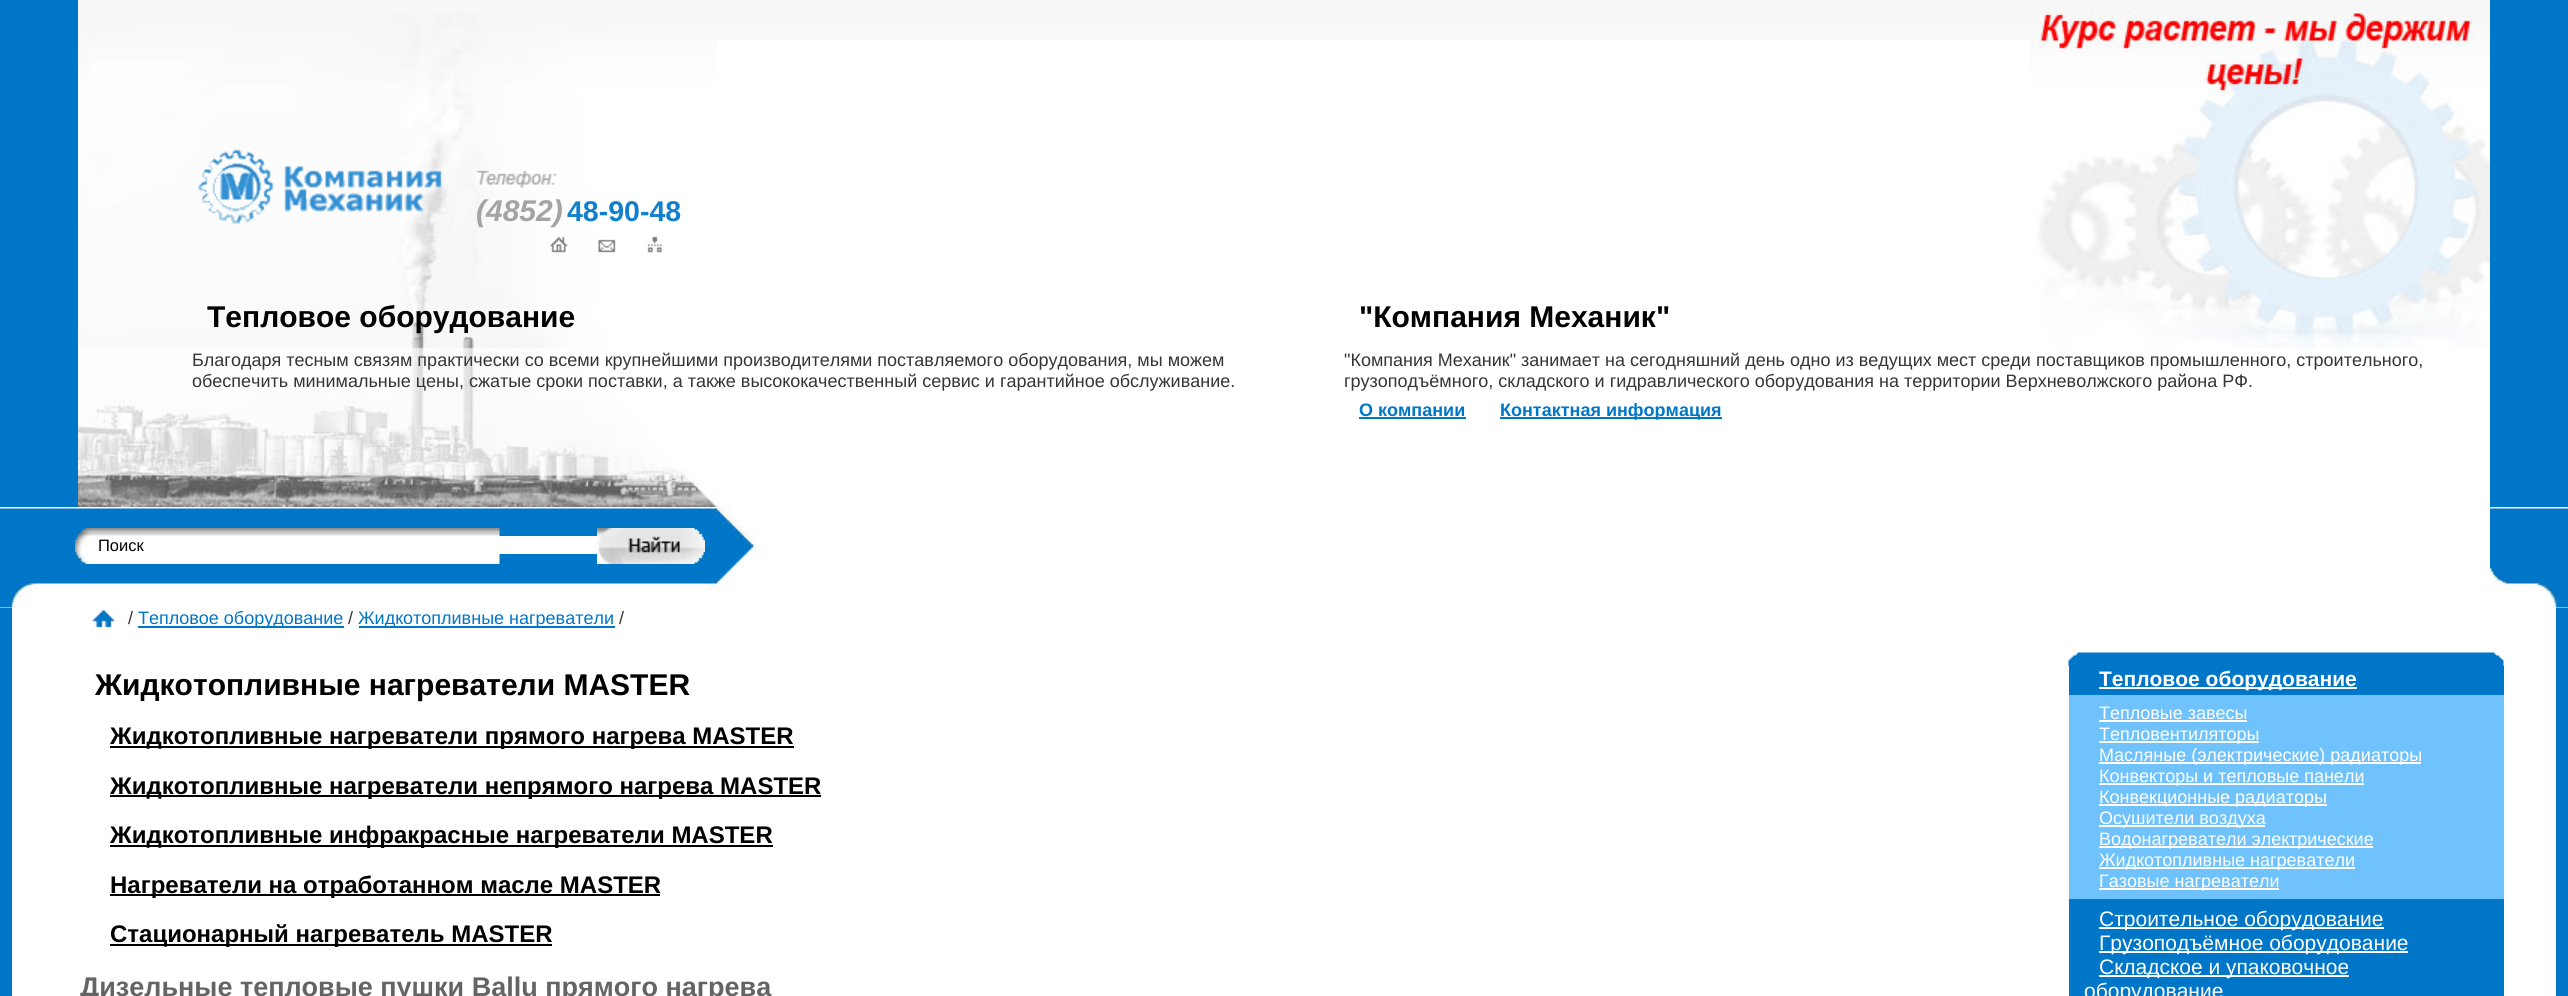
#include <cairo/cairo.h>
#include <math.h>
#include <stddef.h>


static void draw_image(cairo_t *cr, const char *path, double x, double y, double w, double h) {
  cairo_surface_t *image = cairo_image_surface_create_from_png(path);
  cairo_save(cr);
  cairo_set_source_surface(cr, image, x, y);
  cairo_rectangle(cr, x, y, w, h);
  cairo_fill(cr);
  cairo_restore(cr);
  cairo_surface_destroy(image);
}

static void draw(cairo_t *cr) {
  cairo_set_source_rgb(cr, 1, 1, 1);
  cairo_paint(cr);
  draw_image(cr, "images/1.png", 78, 0, 2412, 40);
  cairo_set_source_rgb(cr, 0, 118 / 255.0, 200 / 255.0);
  cairo_rectangle(cr, 2490, 0, 78, 507);
  cairo_fill(cr);
  cairo_rectangle(cr, 0, 0, 78, 507);
  cairo_fill(cr);
  draw_image(cr, "images/2.png", 78, 13, 639, 494);
  draw_image(cr, "images/3.png", 197, 149, 245, 75);
  draw_image(cr, "images/4.png", 476, 170, 81, 18);
  draw_image(cr, "images/5.png", 550, 236, 18, 17);
  draw_image(cr, "images/6.png", 598, 239, 18, 14);
  draw_image(cr, "images/7.png", 647, 236, 15, 17);
  draw_image(cr, "images/8.png", 2030, 12, 460, 336);
  cairo_rectangle(cr, 1359, 417, 107, 2);
  cairo_fill(cr);
  cairo_rectangle(cr, 1500, 417, 222, 2);
  cairo_fill(cr);
  draw_image(cr, "images/9.png", 0, 507, 756, 101);
  draw_image(cr, "images/10.png", 75, 528, 425, 36);
  cairo_set_source_rgb(cr, 1, 1, 1);
  cairo_rectangle(cr, 499, 536, 98, 18);
  cairo_fill(cr);
  draw_image(cr, "images/11.png", 597, 528, 108, 36);
  draw_image(cr, "images/12.png", 2490, 507, 78, 101);
  cairo_set_source_rgb(cr, 0, 118 / 255.0, 200 / 255.0);
  cairo_rectangle(cr, 2556, 608, 12, 388);
  cairo_fill(cr);
  cairo_rectangle(cr, 0, 608, 12, 388);
  cairo_fill(cr);
  draw_image(cr, "images/13.png", 91, 610, 24, 20);
  cairo_rectangle(cr, 138, 626, 206, 2);
  cairo_fill(cr);
  cairo_rectangle(cr, 359, 626, 256, 2);
  cairo_fill(cr);
  cairo_set_source_rgb(cr, 0, 0, 0);
  cairo_rectangle(cr, 110, 746, 684, 2);
  cairo_fill(cr);
  cairo_rectangle(cr, 110, 795, 711, 2);
  cairo_fill(cr);
  cairo_rectangle(cr, 110, 845, 663, 2);
  cairo_fill(cr);
  cairo_rectangle(cr, 110, 894, 550, 2);
  cairo_fill(cr);
  cairo_rectangle(cr, 110, 944, 442, 2);
  cairo_fill(cr);
  draw_image(cr, "images/14.png", 2068, 652, 436, 14);
  cairo_set_source_rgb(cr, 0, 118 / 255.0, 200 / 255.0);
  cairo_rectangle(cr, 2069, 666, 435, 29);
  cairo_fill(cr);
  cairo_set_source_rgb(cr, 1, 1, 1);
  cairo_rectangle(cr, 2099, 687, 258, 2);
  cairo_fill(cr);
  cairo_set_source_rgb(cr, 111 / 255.0, 194 / 255.0, 251 / 255.0);
  cairo_rectangle(cr, 2069, 695, 435, 204);
  cairo_fill(cr);
  cairo_set_source_rgb(cr, 1, 1, 1);
  cairo_rectangle(cr, 2099, 720, 148, 2);
  cairo_fill(cr);
  cairo_rectangle(cr, 2099, 741, 160, 2);
  cairo_fill(cr);
  cairo_rectangle(cr, 2099, 762, 322, 2);
  cairo_fill(cr);
  cairo_rectangle(cr, 2099, 783, 265, 2);
  cairo_fill(cr);
  cairo_rectangle(cr, 2099, 804, 228, 2);
  cairo_fill(cr);
  cairo_rectangle(cr, 2099, 825, 166, 2);
  cairo_fill(cr);
  cairo_rectangle(cr, 2099, 846, 274, 2);
  cairo_fill(cr);
  cairo_rectangle(cr, 2099, 867, 256, 2);
  cairo_fill(cr);
  cairo_rectangle(cr, 2099, 888, 180, 2);
  cairo_fill(cr);
  cairo_set_source_rgb(cr, 0, 118 / 255.0, 200 / 255.0);
  cairo_rectangle(cr, 2069, 899, 435, 97);
  cairo_fill(cr);
  cairo_set_source_rgb(cr, 1, 1, 1);
  cairo_rectangle(cr, 2099, 927, 285, 2);
  cairo_fill(cr);
  cairo_rectangle(cr, 2099, 951, 309, 2);
  cairo_fill(cr);
  cairo_rectangle(cr, 2099, 975, 250, 2);
  cairo_fill(cr);
  cairo_select_font_face(cr, "Liberation Sans", CAIRO_FONT_SLANT_ITALIC, CAIRO_FONT_WEIGHT_BOLD);
  cairo_set_font_size(cr, 30);
  cairo_set_source_rgb(cr, 164 / 255.0, 164 / 255.0, 164 / 255.0);
  cairo_move_to(cr, 476, 221);
  cairo_show_text(cr, "(4852)");
  cairo_select_font_face(cr, "Liberation Sans", CAIRO_FONT_SLANT_NORMAL, CAIRO_FONT_WEIGHT_BOLD);
  cairo_set_font_size(cr, 28.5);
  cairo_set_source_rgb(cr, 17 / 255.0, 127 / 255.0, 204 / 255.0);
  cairo_move_to(cr, 567, 221);
  cairo_show_text(cr, "48-90-48");
  cairo_set_font_size(cr, 30);
  cairo_set_source_rgb(cr, 0, 0, 0);
  cairo_move_to(cr, 207, 327);
  cairo_show_text(cr, "Тепловое оборудование");
  cairo_select_font_face(cr, "Liberation Sans", CAIRO_FONT_SLANT_NORMAL, CAIRO_FONT_WEIGHT_NORMAL);
  cairo_set_font_size(cr, 18);
  cairo_set_source_rgb(cr, 53 / 255.0, 53 / 255.0, 53 / 255.0);
  cairo_move_to(cr, 192, 366);
  cairo_show_text(cr, "Благодаря тесным связям практически со всеми крупнейшими производителями поставляемого оборудования, мы можем");
  cairo_move_to(cr, 192, 387);
  cairo_show_text(cr, "обеспечить минимальные цены, сжатые сроки поставки, а также высококачественный сервис и гарантийное обслуживание.");
  cairo_select_font_face(cr, "Liberation Sans", CAIRO_FONT_SLANT_NORMAL, CAIRO_FONT_WEIGHT_BOLD);
  cairo_set_font_size(cr, 30);
  cairo_set_source_rgb(cr, 0, 0, 0);
  cairo_move_to(cr, 1359, 327);
  cairo_show_text(cr, "\"Компания Механик\"");
  cairo_select_font_face(cr, "Liberation Sans", CAIRO_FONT_SLANT_NORMAL, CAIRO_FONT_WEIGHT_NORMAL);
  cairo_set_font_size(cr, 18);
  cairo_set_source_rgb(cr, 53 / 255.0, 53 / 255.0, 53 / 255.0);
  cairo_move_to(cr, 1344, 366);
  cairo_show_text(cr, "\"Компания Механик\" занимает на сегодняшний день одно из ведущих мест среди поставщиков промышленного, строительного,");
  cairo_move_to(cr, 1344, 387);
  cairo_show_text(cr, "грузоподъёмного, складского и гидравлического оборудования на территории Верхневолжского района РФ.");
  cairo_select_font_face(cr, "Liberation Sans", CAIRO_FONT_SLANT_NORMAL, CAIRO_FONT_WEIGHT_BOLD);
  cairo_set_source_rgb(cr, 0, 118 / 255.0, 200 / 255.0);
  cairo_move_to(cr, 1359, 416);
  cairo_show_text(cr, "О компании");
  cairo_move_to(cr, 1500, 416);
  cairo_show_text(cr, "Контактная информация");
  cairo_select_font_face(cr, "Liberation Sans", CAIRO_FONT_SLANT_NORMAL, CAIRO_FONT_WEIGHT_NORMAL);
  cairo_set_font_size(cr, 16.5);
  cairo_set_source_rgb(cr, 0, 0, 0);
  cairo_move_to(cr, 98, 551);
  cairo_show_text(cr, "Поиск");
  cairo_set_font_size(cr, 18);
  cairo_set_source_rgb(cr, 53 / 255.0, 53 / 255.0, 53 / 255.0);
  cairo_move_to(cr, 128, 624);
  cairo_show_text(cr, "/");
  cairo_set_source_rgb(cr, 0, 118 / 255.0, 200 / 255.0);
  cairo_move_to(cr, 138, 624);
  cairo_show_text(cr, "Тепловое оборудование");
  cairo_set_source_rgb(cr, 53 / 255.0, 53 / 255.0, 53 / 255.0);
  cairo_move_to(cr, 348, 624);
  cairo_show_text(cr, "/");
  cairo_set_source_rgb(cr, 0, 118 / 255.0, 200 / 255.0);
  cairo_move_to(cr, 358, 624);
  cairo_show_text(cr, "Жидкотопливные нагреватели");
  cairo_set_source_rgb(cr, 53 / 255.0, 53 / 255.0, 53 / 255.0);
  cairo_move_to(cr, 619, 624);
  cairo_show_text(cr, "/");
  cairo_select_font_face(cr, "Liberation Sans", CAIRO_FONT_SLANT_NORMAL, CAIRO_FONT_WEIGHT_BOLD);
  cairo_set_font_size(cr, 30);
  cairo_set_source_rgb(cr, 0, 0, 0);
  cairo_move_to(cr, 95, 695);
  cairo_show_text(cr, "Жидкотопливные нагреватели MASTER");
  cairo_set_font_size(cr, 24);
  cairo_move_to(cr, 110, 744);
  cairo_show_text(cr, "Жидкотопливные нагреватели прямого нагрева MASTER");
  cairo_move_to(cr, 110, 794);
  cairo_show_text(cr, "Жидкотопливные нагреватели непрямого нагрева MASTER");
  cairo_move_to(cr, 110, 843);
  cairo_show_text(cr, "Жидкотопливные инфракрасные нагреватели MASTER");
  cairo_move_to(cr, 110, 893);
  cairo_show_text(cr, "Нагреватели на отработанном масле MASTER");
  cairo_move_to(cr, 110, 942);
  cairo_show_text(cr, "Стационарный нагреватель MASTER");
  cairo_set_font_size(cr, 27);
  cairo_set_source_rgb(cr, 100 / 255.0, 100 / 255.0, 100 / 255.0);
  cairo_move_to(cr, 80, 996);
  cairo_show_text(cr, "Дизельные тепловые пушки Ballu прямого нагрева");
  cairo_set_font_size(cr, 21);
  cairo_set_source_rgb(cr, 1, 1, 1);
  cairo_move_to(cr, 2099, 686);
  cairo_show_text(cr, "Тепловое оборудование");
  cairo_select_font_face(cr, "Liberation Sans", CAIRO_FONT_SLANT_NORMAL, CAIRO_FONT_WEIGHT_NORMAL);
  cairo_set_font_size(cr, 18);
  cairo_move_to(cr, 2099, 719);
  cairo_show_text(cr, "Тепловые завесы");
  cairo_move_to(cr, 2099, 740);
  cairo_show_text(cr, "Тепловентиляторы");
  cairo_move_to(cr, 2099, 761);
  cairo_show_text(cr, "Масляные (электрические) радиаторы");
  cairo_move_to(cr, 2099, 782);
  cairo_show_text(cr, "Конвекторы и тепловые панели");
  cairo_move_to(cr, 2099, 803);
  cairo_show_text(cr, "Конвекционные радиаторы");
  cairo_move_to(cr, 2099, 824);
  cairo_show_text(cr, "Осушители воздуха");
  cairo_move_to(cr, 2099, 845);
  cairo_show_text(cr, "Водонагреватели электрические");
  cairo_move_to(cr, 2099, 866);
  cairo_show_text(cr, "Жидкотопливные нагреватели");
  cairo_move_to(cr, 2099, 887);
  cairo_show_text(cr, "Газовые нагреватели");
  cairo_set_font_size(cr, 21);
  cairo_move_to(cr, 2099, 926);
  cairo_show_text(cr, "Строительное оборудование");
  cairo_move_to(cr, 2099, 950);
  cairo_show_text(cr, "Грузоподъёмное оборудование");
  cairo_move_to(cr, 2099, 974);
  cairo_show_text(cr, "Складское и упаковочное");
  cairo_move_to(cr, 2084, 998);
  cairo_show_text(cr, "оборудование");
}

int main(void) {
  cairo_surface_t *surface = cairo_image_surface_create(CAIRO_FORMAT_RGB24, 2568, 996);
  cairo_t *cr = cairo_create(surface);
  cairo_font_options_t *options = cairo_font_options_create();
  cairo_font_options_set_hint_metrics(options, CAIRO_HINT_METRICS_OFF);
  cairo_font_options_set_hint_style(options, CAIRO_HINT_STYLE_NONE);
  cairo_set_font_options(cr, options);
  cairo_set_miter_limit(cr, 4);
  draw(cr);
  cairo_surface_write_to_png(surface, "out.png");
  cairo_font_options_destroy(options);
  cairo_destroy(cr);
  cairo_surface_destroy(surface);
  return 0;
}
